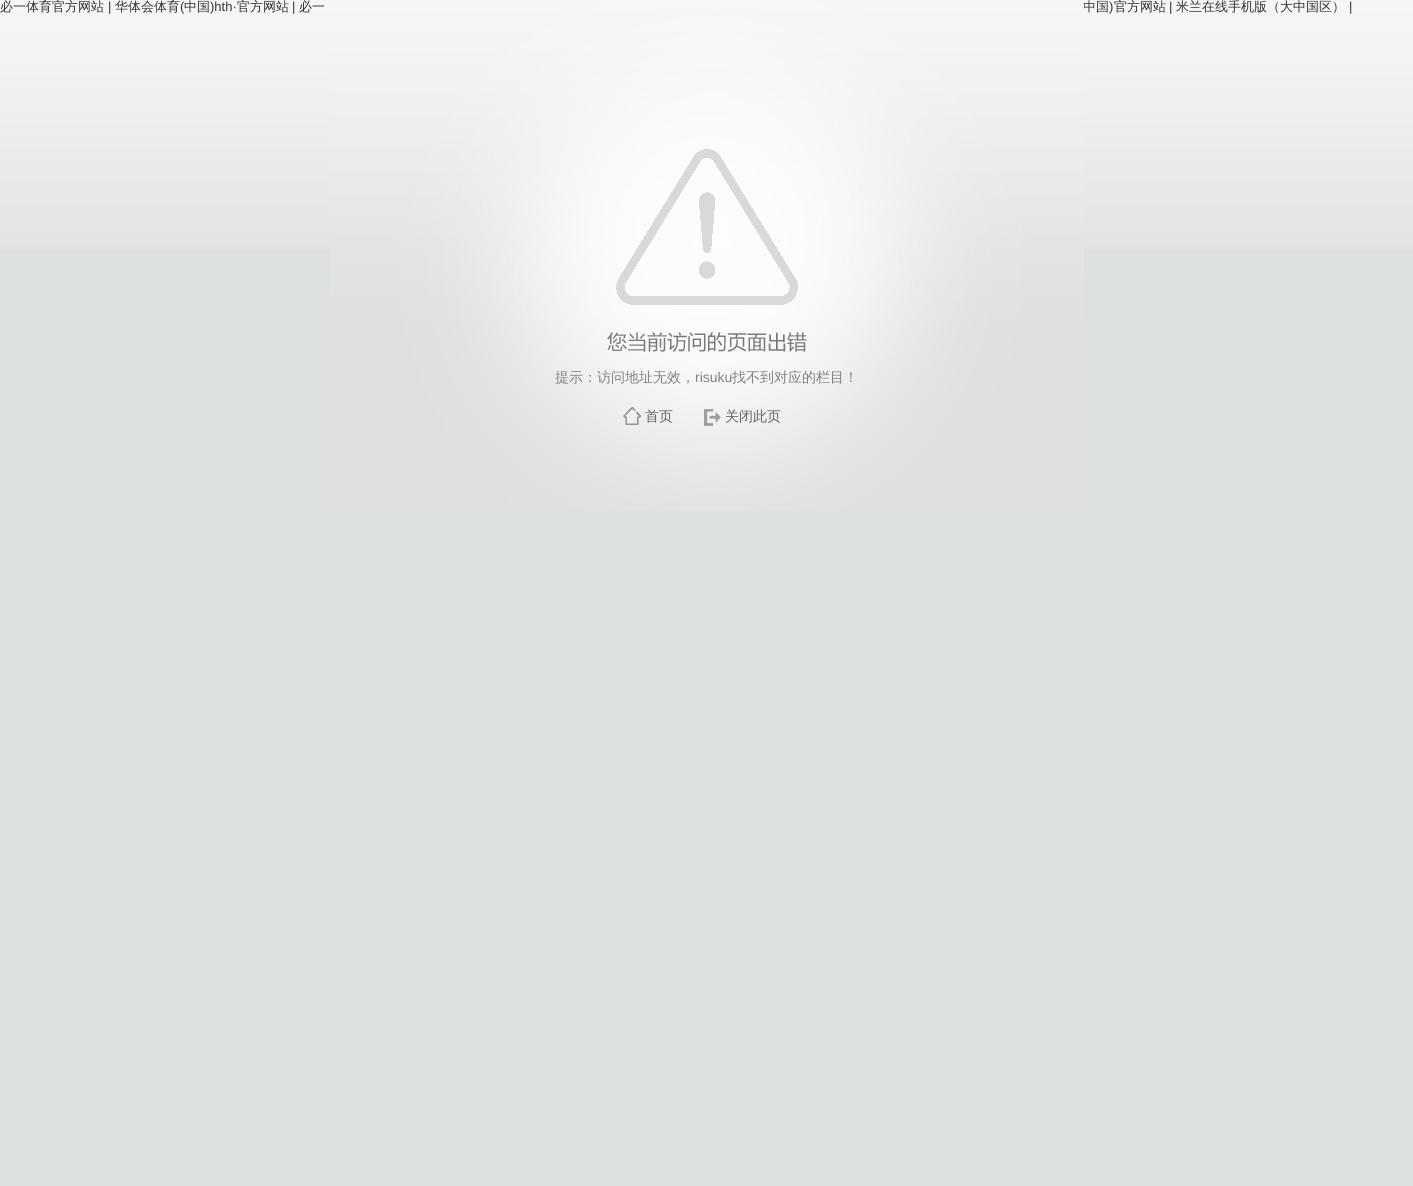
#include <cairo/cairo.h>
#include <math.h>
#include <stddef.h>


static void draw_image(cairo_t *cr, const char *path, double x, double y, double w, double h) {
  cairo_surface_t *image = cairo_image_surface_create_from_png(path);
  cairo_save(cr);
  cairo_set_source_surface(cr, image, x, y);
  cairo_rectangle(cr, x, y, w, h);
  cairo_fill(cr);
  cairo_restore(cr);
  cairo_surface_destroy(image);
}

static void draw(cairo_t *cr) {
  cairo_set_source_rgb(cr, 221 / 255.0, 224 / 255.0, 224 / 255.0);
  cairo_paint(cr);
  draw_image(cr, "images/1.png", 0, 0, 1413, 249);
  cairo_select_font_face(cr, "WenQuanYi Zen Hei Medium", CAIRO_FONT_SLANT_NORMAL, CAIRO_FONT_WEIGHT_NORMAL);
  cairo_set_font_size(cr, 13);
  cairo_set_source_rgb(cr, 51 / 255.0, 51 / 255.0, 51 / 255.0);
  cairo_move_to(cr, 0, 11);
  cairo_show_text(cr, "必一体育官方网站");
  cairo_select_font_face(cr, "Liberation Sans", CAIRO_FONT_SLANT_NORMAL, CAIRO_FONT_WEIGHT_NORMAL);
  cairo_move_to(cr, 108, 11);
  cairo_show_text(cr, "|");
  cairo_select_font_face(cr, "WenQuanYi Zen Hei Medium", CAIRO_FONT_SLANT_NORMAL, CAIRO_FONT_WEIGHT_NORMAL);
  cairo_move_to(cr, 115, 11);
  cairo_show_text(cr, "华体会体育");
  cairo_select_font_face(cr, "Liberation Sans", CAIRO_FONT_SLANT_NORMAL, CAIRO_FONT_WEIGHT_NORMAL);
  cairo_move_to(cr, 180, 11);
  cairo_show_text(cr, "(");
  cairo_select_font_face(cr, "WenQuanYi Zen Hei Medium", CAIRO_FONT_SLANT_NORMAL, CAIRO_FONT_WEIGHT_NORMAL);
  cairo_move_to(cr, 184, 11);
  cairo_show_text(cr, "中国");
  cairo_select_font_face(cr, "Liberation Sans", CAIRO_FONT_SLANT_NORMAL, CAIRO_FONT_WEIGHT_NORMAL);
  cairo_move_to(cr, 210, 11);
  cairo_show_text(cr, ")hth·");
  cairo_select_font_face(cr, "WenQuanYi Zen Hei Medium", CAIRO_FONT_SLANT_NORMAL, CAIRO_FONT_WEIGHT_NORMAL);
  cairo_move_to(cr, 237, 11);
  cairo_show_text(cr, "官方网站");
  cairo_select_font_face(cr, "Liberation Sans", CAIRO_FONT_SLANT_NORMAL, CAIRO_FONT_WEIGHT_NORMAL);
  cairo_move_to(cr, 292, 11);
  cairo_show_text(cr, "|");
  cairo_select_font_face(cr, "WenQuanYi Zen Hei Medium", CAIRO_FONT_SLANT_NORMAL, CAIRO_FONT_WEIGHT_NORMAL);
  cairo_move_to(cr, 299, 11);
  cairo_show_text(cr, "必一");
  cairo_move_to(cr, 1083, 11);
  cairo_show_text(cr, "中国");
  cairo_select_font_face(cr, "Liberation Sans", CAIRO_FONT_SLANT_NORMAL, CAIRO_FONT_WEIGHT_NORMAL);
  cairo_move_to(cr, 1109, 11);
  cairo_show_text(cr, ")");
  cairo_select_font_face(cr, "WenQuanYi Zen Hei Medium", CAIRO_FONT_SLANT_NORMAL, CAIRO_FONT_WEIGHT_NORMAL);
  cairo_move_to(cr, 1114, 11);
  cairo_show_text(cr, "官方网站");
  cairo_select_font_face(cr, "Liberation Sans", CAIRO_FONT_SLANT_NORMAL, CAIRO_FONT_WEIGHT_NORMAL);
  cairo_move_to(cr, 1169, 11);
  cairo_show_text(cr, "|");
  cairo_select_font_face(cr, "WenQuanYi Zen Hei Medium", CAIRO_FONT_SLANT_NORMAL, CAIRO_FONT_WEIGHT_NORMAL);
  cairo_move_to(cr, 1176, 11);
  cairo_show_text(cr, "米兰在线手机版（大中国区）");
  cairo_select_font_face(cr, "Liberation Sans", CAIRO_FONT_SLANT_NORMAL, CAIRO_FONT_WEIGHT_NORMAL);
  cairo_move_to(cr, 1349, 11);
  cairo_show_text(cr, "|");
  draw_image(cr, "images/2.png", 329, 0, 755, 511);
  draw_image(cr, "images/3.png", 607, 149, 200, 203);
  cairo_select_font_face(cr, "WenQuanYi Zen Hei Medium", CAIRO_FONT_SLANT_NORMAL, CAIRO_FONT_WEIGHT_NORMAL);
  cairo_set_font_size(cr, 14);
  cairo_set_source_rgb(cr, 129 / 255.0, 129 / 255.0, 129 / 255.0);
  cairo_move_to(cr, 555, 382);
  cairo_show_text(cr, "提示：访问地址无效，");
  cairo_select_font_face(cr, "Liberation Sans", CAIRO_FONT_SLANT_NORMAL, CAIRO_FONT_WEIGHT_NORMAL);
  cairo_move_to(cr, 695, 382);
  cairo_show_text(cr, "risuku");
  cairo_select_font_face(cr, "WenQuanYi Zen Hei Medium", CAIRO_FONT_SLANT_NORMAL, CAIRO_FONT_WEIGHT_NORMAL);
  cairo_move_to(cr, 732, 382);
  cairo_show_text(cr, "找不到对应的栏目！");
  draw_image(cr, "images/4.png", 622, 407, 19, 18);
  cairo_set_source_rgb(cr, 98 / 255.0, 98 / 255.0, 98 / 255.0);
  cairo_move_to(cr, 645, 421);
  cairo_show_text(cr, "首页");
  draw_image(cr, "images/5.png", 704, 409, 17, 17);
  cairo_move_to(cr, 725, 421);
  cairo_show_text(cr, "关闭此页");
}

int main(void) {
  cairo_surface_t *surface = cairo_image_surface_create(CAIRO_FORMAT_RGB24, 1413, 1186);
  cairo_t *cr = cairo_create(surface);
  cairo_font_options_t *options = cairo_font_options_create();
  cairo_font_options_set_hint_metrics(options, CAIRO_HINT_METRICS_OFF);
  cairo_font_options_set_hint_style(options, CAIRO_HINT_STYLE_NONE);
  cairo_set_font_options(cr, options);
  cairo_set_miter_limit(cr, 4);
  draw(cr);
  cairo_surface_write_to_png(surface, "out.png");
  cairo_font_options_destroy(options);
  cairo_destroy(cr);
  cairo_surface_destroy(surface);
  return 0;
}
